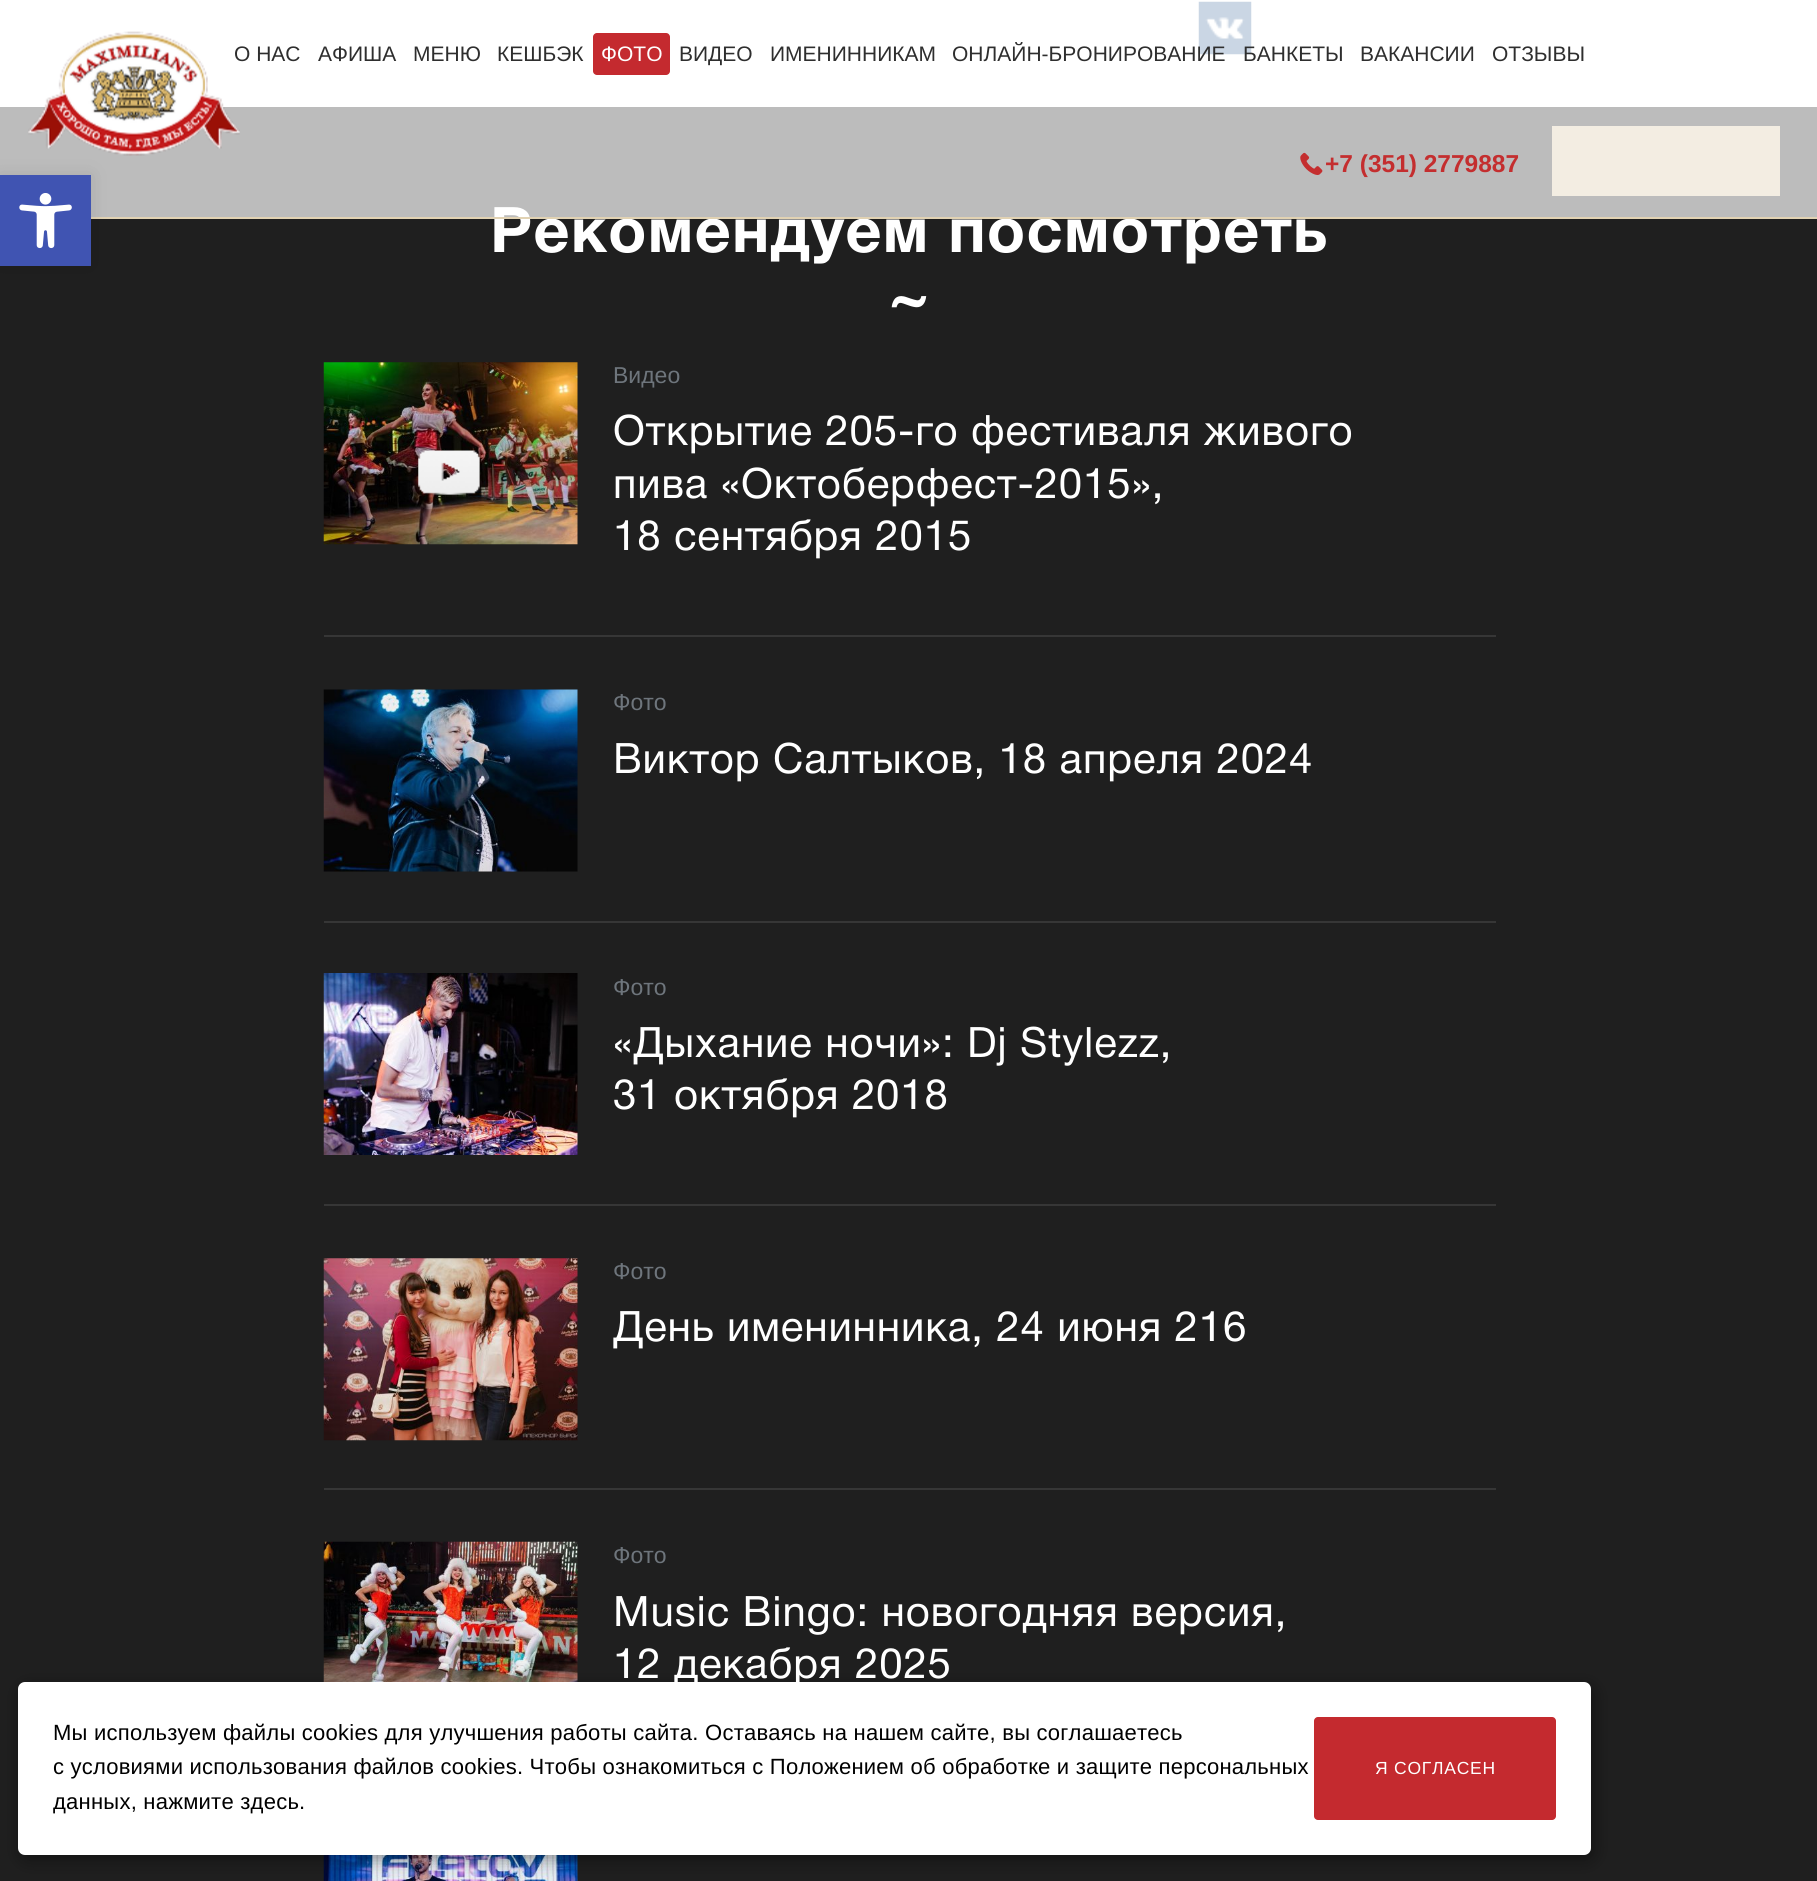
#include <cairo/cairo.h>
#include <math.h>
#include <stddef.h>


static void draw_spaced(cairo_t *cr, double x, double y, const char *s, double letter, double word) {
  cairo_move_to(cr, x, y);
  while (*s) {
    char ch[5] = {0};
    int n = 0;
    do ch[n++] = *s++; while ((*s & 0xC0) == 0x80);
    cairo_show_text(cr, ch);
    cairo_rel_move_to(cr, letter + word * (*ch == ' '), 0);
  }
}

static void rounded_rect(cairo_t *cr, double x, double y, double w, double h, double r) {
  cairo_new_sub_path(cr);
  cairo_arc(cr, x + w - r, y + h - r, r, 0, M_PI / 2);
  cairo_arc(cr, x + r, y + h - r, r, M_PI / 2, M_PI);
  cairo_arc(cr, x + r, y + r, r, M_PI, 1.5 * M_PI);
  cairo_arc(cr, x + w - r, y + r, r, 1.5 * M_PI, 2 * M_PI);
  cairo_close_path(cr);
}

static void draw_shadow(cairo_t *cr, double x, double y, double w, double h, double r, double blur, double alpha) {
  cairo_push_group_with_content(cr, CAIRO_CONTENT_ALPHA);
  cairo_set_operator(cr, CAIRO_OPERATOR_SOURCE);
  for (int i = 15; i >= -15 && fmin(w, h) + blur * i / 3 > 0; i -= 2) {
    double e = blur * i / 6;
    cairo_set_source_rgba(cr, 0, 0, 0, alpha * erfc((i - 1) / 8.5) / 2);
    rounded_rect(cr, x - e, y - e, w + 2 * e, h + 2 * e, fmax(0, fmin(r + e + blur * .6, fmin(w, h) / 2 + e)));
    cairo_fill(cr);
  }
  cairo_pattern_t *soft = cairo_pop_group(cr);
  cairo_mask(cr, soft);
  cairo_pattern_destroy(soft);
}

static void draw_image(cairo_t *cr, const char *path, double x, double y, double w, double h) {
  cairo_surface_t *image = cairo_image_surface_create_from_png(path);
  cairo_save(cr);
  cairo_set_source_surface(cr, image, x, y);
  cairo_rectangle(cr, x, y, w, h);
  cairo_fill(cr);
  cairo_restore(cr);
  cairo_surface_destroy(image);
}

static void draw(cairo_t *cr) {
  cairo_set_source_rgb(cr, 1, 1, 1);
  cairo_paint(cr);
  draw_image(cr, "images/4.png", 1198, 1, 54, 54);
  cairo_set_source_rgb(cr, 31 / 255.0, 31 / 255.0, 31 / 255.0);
  cairo_rectangle(cr, 0, 107, 1817, 1774);
  cairo_fill(cr);
  cairo_set_source_rgb(cr, 54 / 255.0, 54 / 255.0, 54 / 255.0);
  cairo_rectangle(cr, 324, 635, 1172, 2);
  cairo_fill(cr);
  draw_image(cr, "images/5.png", 323, 362, 255, 183);
  draw_image(cr, "images/6.png", 418, 450, 62, 45);
  cairo_rectangle(cr, 324, 921, 1172, 2);
  cairo_fill(cr);
  draw_image(cr, "images/7.png", 323, 689, 255, 183);
  cairo_rectangle(cr, 324, 1204, 1172, 2);
  cairo_fill(cr);
  draw_image(cr, "images/8.png", 323, 973, 255, 182);
  cairo_rectangle(cr, 324, 1488, 1172, 2);
  cairo_fill(cr);
  draw_image(cr, "images/9.png", 323, 1258, 255, 183);
  draw_image(cr, "images/10.png", 323, 1541, 255, 141);
  draw_image(cr, "images/11.png", 323, 1855, 255, 26);
  cairo_set_source_rgb(cr, 0, 0, 0);
  draw_shadow(cr, 21, 1687, 1573, 173, 7, 9, 0.4);
  cairo_set_source_rgb(cr, 1, 1, 1);
  rounded_rect(cr, 18, 1682, 1573, 173, 7);
  cairo_fill(cr);
  cairo_set_source_rgb(cr, 196 / 255.0, 42 / 255.0, 47 / 255.0);
  rounded_rect(cr, 1314, 1717, 242, 103, 4);
  cairo_fill(cr);
  cairo_select_font_face(cr, "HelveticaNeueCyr", CAIRO_FONT_SLANT_NORMAL, CAIRO_FONT_WEIGHT_BOLD);
  cairo_set_font_size(cr, 63);
  cairo_set_source_rgb(cr, 1, 1, 1);
  draw_spaced(cr, 490, 252, "Рекомендуем посмотреть", 1.25, 0);
  cairo_set_source_rgba(cr, 1, 1, 1, 0.7);
  cairo_rectangle(cr, 0, 1, 1817, 216);
  cairo_fill(cr);
  cairo_select_font_face(cr, "Liberation Sans", CAIRO_FONT_SLANT_NORMAL, CAIRO_FONT_WEIGHT_NORMAL);
  cairo_set_font_size(cr, 21);
  cairo_set_source_rgb(cr, 46 / 255.0, 46 / 255.0, 46 / 255.0);
  cairo_move_to(cr, 234, 61);
  cairo_show_text(cr, "О НАС");
  draw_image(cr, "images/1.png", 28, 31, 212, 125);
  cairo_set_source_rgb(cr, 225 / 255.0, 210 / 255.0, 179 / 255.0);
  cairo_rectangle(cr, 91, 217, 1726, 2);
  cairo_fill(cr);
  cairo_set_source_rgb(cr, 0, 0, 0);
  draw_shadow(cr, 0, 175, 91, 91, 0, 9, 0.1);
  cairo_set_source_rgb(cr, 64 / 255.0, 84 / 255.0, 178 / 255.0);
  cairo_rectangle(cr, 0, 175, 91, 91);
  cairo_fill(cr);
  draw_image(cr, "images/3.png", 19, 193, 53, 56);
  draw_image(cr, "images/2.png", 1300, 152, 23, 23);
  cairo_set_source_rgb(cr, 243 / 255.0, 237 / 255.0, 226 / 255.0);
  cairo_rectangle(cr, 1552, 126, 228, 70);
  cairo_fill(cr);
  cairo_select_font_face(cr, "Liberation Sans", CAIRO_FONT_SLANT_NORMAL, CAIRO_FONT_WEIGHT_BOLD);
  cairo_set_font_size(cr, 24.5);
  cairo_set_source_rgb(cr, 196 / 255.0, 46 / 255.0, 47 / 255.0);
  cairo_move_to(cr, 1325, 172);
  cairo_show_text(cr, "+7 (351) 2779887");
  cairo_select_font_face(cr, "Liberation Sans", CAIRO_FONT_SLANT_NORMAL, CAIRO_FONT_WEIGHT_NORMAL);
  cairo_set_font_size(cr, 21);
  cairo_set_source_rgb(cr, 46 / 255.0, 46 / 255.0, 46 / 255.0);
  cairo_move_to(cr, 1492, 61);
  cairo_show_text(cr, "ОТЗЫВЫ");
  cairo_move_to(cr, 1360, 61);
  cairo_show_text(cr, "ВАКАНСИИ");
  cairo_move_to(cr, 1243, 61);
  cairo_show_text(cr, "БАНКЕТЫ");
  cairo_move_to(cr, 952, 61);
  cairo_show_text(cr, "ОНЛАЙН-БРОНИРОВАНИЕ");
  cairo_move_to(cr, 770, 61);
  cairo_show_text(cr, "ИМЕНИННИКАМ");
  cairo_move_to(cr, 679, 61);
  cairo_show_text(cr, "ВИДЕО");
  cairo_set_source_rgb(cr, 196 / 255.0, 42 / 255.0, 47 / 255.0);
  rounded_rect(cr, 593, 33, 77, 42, 4);
  cairo_fill(cr);
  cairo_set_source_rgb(cr, 1, 1, 1);
  cairo_move_to(cr, 601, 61);
  cairo_show_text(cr, "ФОТО");
  cairo_set_source_rgb(cr, 46 / 255.0, 46 / 255.0, 46 / 255.0);
  cairo_move_to(cr, 497, 61);
  cairo_show_text(cr, "КЕШБЭК");
  cairo_move_to(cr, 413, 61);
  cairo_show_text(cr, "МЕНЮ");
  cairo_move_to(cr, 318, 61);
  cairo_show_text(cr, "АФИША");
  cairo_select_font_face(cr, "HelveticaNeueCyr", CAIRO_FONT_SLANT_NORMAL, CAIRO_FONT_WEIGHT_BOLD);
  cairo_set_font_size(cr, 63);
  cairo_set_source_rgb(cr, 1, 1, 1);
  draw_spaced(cr, 890, 318, "~", 1.25, 0);
  cairo_select_font_face(cr, "Liberation Sans", CAIRO_FONT_SLANT_NORMAL, CAIRO_FONT_WEIGHT_NORMAL);
  cairo_set_font_size(cr, 23);
  cairo_set_source_rgb(cr, 110 / 255.0, 117 / 255.0, 124 / 255.0);
  cairo_move_to(cr, 613, 383);
  cairo_show_text(cr, "Видео");
  cairo_select_font_face(cr, "HelveticaNeueCyr", CAIRO_FONT_SLANT_NORMAL, CAIRO_FONT_WEIGHT_NORMAL);
  cairo_set_font_size(cr, 42);
  cairo_set_source_rgb(cr, 1, 1, 1);
  draw_spaced(cr, 613, 445, "Открытие 205-го фестиваля живого", 0.85, 0);
  draw_spaced(cr, 613, 498, "пива «Октоберфест-2015»,", 0.85, 0);
  draw_spaced(cr, 613, 550, "18 сентября 2015", 0.85, 0);
  cairo_select_font_face(cr, "Liberation Sans", CAIRO_FONT_SLANT_NORMAL, CAIRO_FONT_WEIGHT_NORMAL);
  cairo_set_font_size(cr, 23);
  cairo_set_source_rgb(cr, 110 / 255.0, 117 / 255.0, 124 / 255.0);
  cairo_move_to(cr, 613, 710);
  cairo_show_text(cr, "Фото");
  cairo_select_font_face(cr, "HelveticaNeueCyr", CAIRO_FONT_SLANT_NORMAL, CAIRO_FONT_WEIGHT_NORMAL);
  cairo_set_font_size(cr, 42);
  cairo_set_source_rgb(cr, 1, 1, 1);
  draw_spaced(cr, 613, 773, "Виктор Салтыков, 18 апреля 2024", 0.85, 0);
  cairo_select_font_face(cr, "Liberation Sans", CAIRO_FONT_SLANT_NORMAL, CAIRO_FONT_WEIGHT_NORMAL);
  cairo_set_font_size(cr, 23);
  cairo_set_source_rgb(cr, 110 / 255.0, 117 / 255.0, 124 / 255.0);
  cairo_move_to(cr, 613, 995);
  cairo_show_text(cr, "Фото");
  cairo_select_font_face(cr, "HelveticaNeueCyr", CAIRO_FONT_SLANT_NORMAL, CAIRO_FONT_WEIGHT_NORMAL);
  cairo_set_font_size(cr, 42);
  cairo_set_source_rgb(cr, 1, 1, 1);
  draw_spaced(cr, 613, 1057, "«Дыхание ночи»: Dj Stylezz,", 0.85, 0);
  draw_spaced(cr, 613, 1109, "31 октября 2018", 0.85, 0);
  cairo_select_font_face(cr, "Liberation Sans", CAIRO_FONT_SLANT_NORMAL, CAIRO_FONT_WEIGHT_NORMAL);
  cairo_set_font_size(cr, 23);
  cairo_set_source_rgb(cr, 110 / 255.0, 117 / 255.0, 124 / 255.0);
  cairo_move_to(cr, 613, 1279);
  cairo_show_text(cr, "Фото");
  cairo_select_font_face(cr, "HelveticaNeueCyr", CAIRO_FONT_SLANT_NORMAL, CAIRO_FONT_WEIGHT_NORMAL);
  cairo_set_font_size(cr, 42);
  cairo_set_source_rgb(cr, 1, 1, 1);
  draw_spaced(cr, 613, 1341, "День именинника, 24 июня 216", 0.85, 0);
  cairo_select_font_face(cr, "Liberation Sans", CAIRO_FONT_SLANT_NORMAL, CAIRO_FONT_WEIGHT_NORMAL);
  cairo_set_font_size(cr, 23);
  cairo_set_source_rgb(cr, 110 / 255.0, 117 / 255.0, 124 / 255.0);
  cairo_move_to(cr, 613, 1563);
  cairo_show_text(cr, "Фото");
  cairo_select_font_face(cr, "HelveticaNeueCyr", CAIRO_FONT_SLANT_NORMAL, CAIRO_FONT_WEIGHT_NORMAL);
  cairo_set_font_size(cr, 42);
  cairo_set_source_rgb(cr, 1, 1, 1);
  draw_spaced(cr, 613, 1626, "Music Bingo: новогодняя версия,", 0.85, 0);
  draw_spaced(cr, 613, 1678, "12 декабря 2025", 0.85, 0);
  cairo_select_font_face(cr, "Liberation Sans", CAIRO_FONT_SLANT_NORMAL, CAIRO_FONT_WEIGHT_NORMAL);
  cairo_set_font_size(cr, 22.05);
  cairo_set_source_rgb(cr, 0, 0, 0);
  draw_spaced(cr, 53, 1740, "Мы используем файлы cookies для улучшения работы сайта. Оставаясь на нашем сайте, вы соглашаетесь", 0.22, 0);
  draw_spaced(cr, 53, 1774, "с условиями использования файлов cookies. Чтобы ознакомиться с Положением об обработке и защите персональных", 0.22, 0);
  draw_spaced(cr, 53, 1809, "данных, нажмите здесь.", 0.22, 0);
  cairo_set_font_size(cr, 17.5);
  cairo_set_source_rgb(cr, 1, 1, 1);
  draw_spaced(cr, 1375, 1774, "Я СОГЛАСЕН", 0.75, 0);
}

int main(void) {
  cairo_surface_t *surface = cairo_image_surface_create(CAIRO_FORMAT_RGB24, 1817, 1881);
  cairo_t *cr = cairo_create(surface);
  cairo_font_options_t *options = cairo_font_options_create();
  cairo_font_options_set_hint_metrics(options, CAIRO_HINT_METRICS_OFF);
  cairo_font_options_set_hint_style(options, CAIRO_HINT_STYLE_NONE);
  cairo_set_font_options(cr, options);
  cairo_set_miter_limit(cr, 4);
  draw(cr);
  cairo_surface_write_to_png(surface, "out.png");
  cairo_font_options_destroy(options);
  cairo_destroy(cr);
  cairo_surface_destroy(surface);
  return 0;
}
